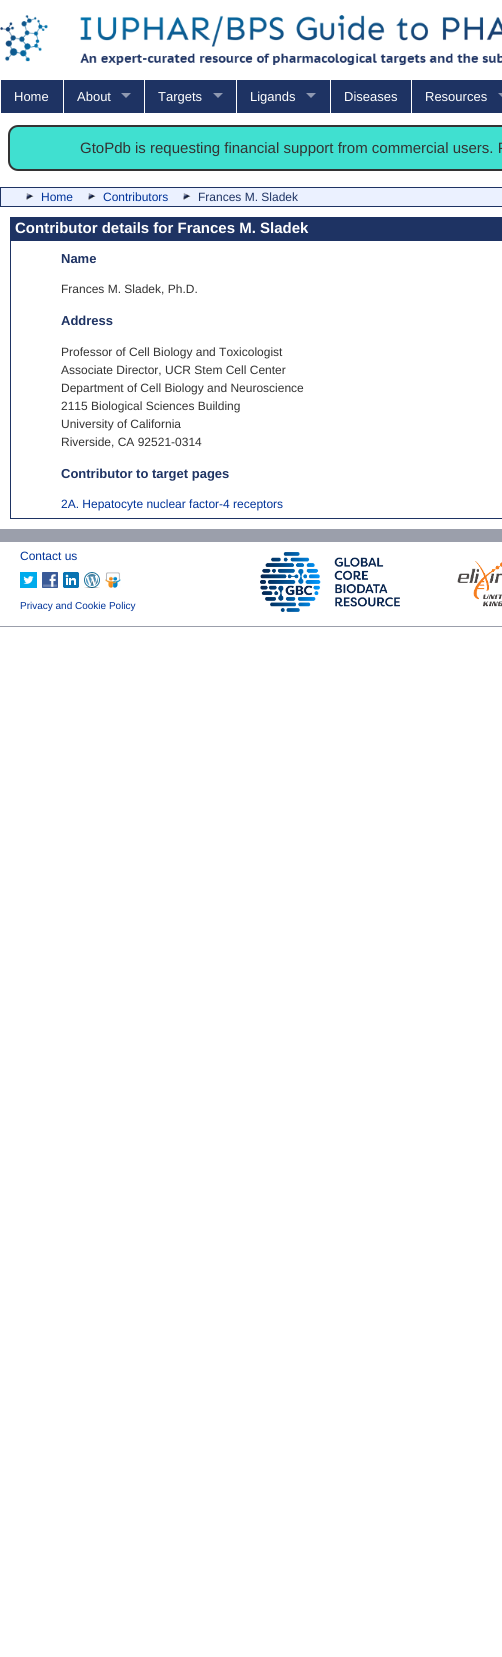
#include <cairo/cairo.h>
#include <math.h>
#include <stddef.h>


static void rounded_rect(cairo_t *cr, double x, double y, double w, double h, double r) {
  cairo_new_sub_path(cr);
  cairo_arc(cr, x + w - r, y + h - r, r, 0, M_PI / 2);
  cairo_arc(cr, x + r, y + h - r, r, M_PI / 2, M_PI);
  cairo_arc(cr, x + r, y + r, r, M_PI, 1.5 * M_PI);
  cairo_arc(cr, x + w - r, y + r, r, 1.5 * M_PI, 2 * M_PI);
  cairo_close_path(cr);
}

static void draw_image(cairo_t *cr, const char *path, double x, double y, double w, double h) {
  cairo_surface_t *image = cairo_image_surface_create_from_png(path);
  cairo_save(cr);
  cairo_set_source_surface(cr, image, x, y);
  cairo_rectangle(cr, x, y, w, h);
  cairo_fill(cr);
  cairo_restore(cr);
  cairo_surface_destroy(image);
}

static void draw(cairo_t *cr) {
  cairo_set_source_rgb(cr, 1, 1, 1);
  cairo_paint(cr);
  draw_image(cr, "images/1.png", 0, 15, 502, 50);
  cairo_set_source_rgb(cr, 30 / 255.0, 51 / 255.0, 99 / 255.0);
  cairo_rectangle(cr, 1, 80, 501, 33);
  cairo_fill(cr);
  cairo_set_source_rgb(cr, 1, 1, 1);
  cairo_rectangle(cr, 63, 80, 1, 33);
  cairo_fill(cr);
  cairo_set_source_rgb(cr, 143 / 255.0, 153 / 255.0, 177 / 255.0);
  cairo_new_path(cr);
  cairo_move_to(cr, 121, 93);
  cairo_line_to(cr, 131, 93);
  cairo_line_to(cr, 126, 98);
  cairo_close_path(cr);
  cairo_fill(cr);
  cairo_set_source_rgb(cr, 1, 1, 1);
  cairo_rectangle(cr, 144, 80, 1, 33);
  cairo_fill(cr);
  cairo_set_source_rgb(cr, 143 / 255.0, 153 / 255.0, 177 / 255.0);
  cairo_new_path(cr);
  cairo_move_to(cr, 213, 93);
  cairo_line_to(cr, 223, 93);
  cairo_line_to(cr, 218, 98);
  cairo_close_path(cr);
  cairo_fill(cr);
  cairo_set_source_rgb(cr, 1, 1, 1);
  cairo_rectangle(cr, 236, 80, 1, 33);
  cairo_fill(cr);
  cairo_set_source_rgb(cr, 143 / 255.0, 153 / 255.0, 177 / 255.0);
  cairo_new_path(cr);
  cairo_move_to(cr, 306, 93);
  cairo_line_to(cr, 316, 93);
  cairo_line_to(cr, 311, 98);
  cairo_close_path(cr);
  cairo_fill(cr);
  cairo_set_source_rgb(cr, 1, 1, 1);
  cairo_rectangle(cr, 330, 80, 1, 33);
  cairo_fill(cr);
  cairo_rectangle(cr, 411, 80, 1, 33);
  cairo_fill(cr);
  cairo_set_source_rgb(cr, 143 / 255.0, 153 / 255.0, 177 / 255.0);
  cairo_new_path(cr);
  cairo_move_to(cr, 498, 93);
  cairo_line_to(cr, 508, 93);
  cairo_line_to(cr, 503, 98);
  cairo_close_path(cr);
  cairo_fill(cr);
  cairo_set_source_rgb(cr, 64 / 255.0, 224 / 255.0, 208 / 255.0);
  rounded_rect(cr, 9, 126, 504, 44, 9);
  cairo_fill_preserve(cr);
  cairo_set_source_rgb(cr, 51 / 255.0, 51 / 255.0, 51 / 255.0);
  cairo_stroke(cr);
  cairo_set_source_rgb(cr, 235 / 255.0, 241 / 255.0, 1);
  cairo_rectangle(cr, 0.5, 187.5, 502, 19);
  cairo_fill_preserve(cr);
  cairo_set_source_rgb(cr, 30 / 255.0, 51 / 255.0, 99 / 255.0);
  cairo_set_line_width(cr, 1);
  cairo_stroke(cr);
  draw_image(cr, "images/2.png", 26, 193, 8, 7);
  draw_image(cr, "images/2.png", 88, 193, 8, 7);
  draw_image(cr, "images/2.png", 183, 193, 8, 7);
  cairo_rectangle(cr, 10, 217, 492, 23);
  cairo_fill(cr);
  cairo_rectangle(cr, 10.5, 240.5, 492, 278);
  cairo_stroke(cr);
  cairo_set_source_rgb(cr, 155 / 255.0, 159 / 255.0, 171 / 255.0);
  cairo_rectangle(cr, 0, 529, 502, 13);
  cairo_fill(cr);
  cairo_rectangle(cr, 0, 626, 502, 1);
  cairo_fill(cr);
  draw_image(cr, "images/3.png", 20, 572, 17, 16);
  draw_image(cr, "images/4.png", 42, 572, 16, 16);
  draw_image(cr, "images/5.png", 63, 572, 16, 16);
  draw_image(cr, "images/6.png", 84, 572, 16, 16);
  draw_image(cr, "images/7.png", 105, 572, 16, 16);
  draw_image(cr, "images/8.png", 260, 552, 140, 60);
  draw_image(cr, "images/9.png", 457, 561, 45, 46);
  cairo_select_font_face(cr, "Liberation Sans", CAIRO_FONT_SLANT_NORMAL, CAIRO_FONT_WEIGHT_NORMAL);
  cairo_set_font_size(cr, 13);
  cairo_set_source_rgb(cr, 1, 1, 1);
  cairo_move_to(cr, 14, 101);
  cairo_show_text(cr, "Home");
  cairo_move_to(cr, 77, 101);
  cairo_show_text(cr, "About");
  cairo_move_to(cr, 158, 101);
  cairo_show_text(cr, "Targets");
  cairo_move_to(cr, 250, 101);
  cairo_show_text(cr, "Ligands");
  cairo_move_to(cr, 344, 101);
  cairo_show_text(cr, "Diseases");
  cairo_move_to(cr, 425, 101);
  cairo_show_text(cr, "Resources");
  cairo_set_font_size(cr, 15);
  cairo_set_source_rgb(cr, 51 / 255.0, 51 / 255.0, 51 / 255.0);
  cairo_move_to(cr, 80, 153);
  cairo_show_text(cr, "GtoPdb is requesting financial support from commercial users. P");
  cairo_set_font_size(cr, 12);
  cairo_set_source_rgb(cr, 0, 51 / 255.0, 153 / 255.0);
  cairo_move_to(cr, 41, 201);
  cairo_show_text(cr, "Home");
  cairo_move_to(cr, 103, 201);
  cairo_show_text(cr, "Contributors");
  cairo_set_source_rgb(cr, 30 / 255.0, 51 / 255.0, 99 / 255.0);
  cairo_move_to(cr, 198, 201);
  cairo_show_text(cr, "Frances M. Sladek");
  cairo_select_font_face(cr, "Liberation Sans", CAIRO_FONT_SLANT_NORMAL, CAIRO_FONT_WEIGHT_BOLD);
  cairo_set_font_size(cr, 15);
  cairo_set_source_rgb(cr, 1, 1, 1);
  cairo_move_to(cr, 15, 233);
  cairo_show_text(cr, "Contributor details for Frances M. Sladek");
  cairo_set_font_size(cr, 13);
  cairo_set_source_rgb(cr, 30 / 255.0, 51 / 255.0, 99 / 255.0);
  cairo_move_to(cr, 61, 263);
  cairo_show_text(cr, "Name");
  cairo_select_font_face(cr, "Liberation Sans", CAIRO_FONT_SLANT_NORMAL, CAIRO_FONT_WEIGHT_NORMAL);
  cairo_set_font_size(cr, 12);
  cairo_set_source_rgb(cr, 51 / 255.0, 51 / 255.0, 51 / 255.0);
  cairo_move_to(cr, 61, 293);
  cairo_show_text(cr, "Frances M. Sladek, Ph.D.");
  cairo_select_font_face(cr, "Liberation Sans", CAIRO_FONT_SLANT_NORMAL, CAIRO_FONT_WEIGHT_BOLD);
  cairo_set_font_size(cr, 13);
  cairo_set_source_rgb(cr, 30 / 255.0, 51 / 255.0, 99 / 255.0);
  cairo_move_to(cr, 61, 325);
  cairo_show_text(cr, "Address");
  cairo_select_font_face(cr, "Liberation Sans", CAIRO_FONT_SLANT_NORMAL, CAIRO_FONT_WEIGHT_NORMAL);
  cairo_set_font_size(cr, 12);
  cairo_set_source_rgb(cr, 51 / 255.0, 51 / 255.0, 51 / 255.0);
  cairo_move_to(cr, 61, 356);
  cairo_show_text(cr, "Professor of Cell Biology and Toxicologist");
  cairo_move_to(cr, 61, 374);
  cairo_show_text(cr, "Associate Director, UCR Stem Cell Center");
  cairo_move_to(cr, 61, 392);
  cairo_show_text(cr, "Department of Cell Biology and Neuroscience");
  cairo_move_to(cr, 61, 410);
  cairo_show_text(cr, "2115 Biological Sciences Building");
  cairo_move_to(cr, 61, 428);
  cairo_show_text(cr, "University of California");
  cairo_move_to(cr, 61, 446);
  cairo_show_text(cr, "Riverside, CA 92521-0314");
  cairo_select_font_face(cr, "Liberation Sans", CAIRO_FONT_SLANT_NORMAL, CAIRO_FONT_WEIGHT_BOLD);
  cairo_set_font_size(cr, 13);
  cairo_set_source_rgb(cr, 30 / 255.0, 51 / 255.0, 99 / 255.0);
  cairo_move_to(cr, 61, 478);
  cairo_show_text(cr, "Contributor to target pages");
  cairo_select_font_face(cr, "Liberation Sans", CAIRO_FONT_SLANT_NORMAL, CAIRO_FONT_WEIGHT_NORMAL);
  cairo_set_font_size(cr, 12);
  cairo_set_source_rgb(cr, 0, 51 / 255.0, 153 / 255.0);
  cairo_move_to(cr, 61, 508);
  cairo_show_text(cr, "2A. Hepatocyte nuclear factor-4 receptors");
  cairo_move_to(cr, 20, 560);
  cairo_show_text(cr, "Contact us");
  cairo_set_font_size(cr, 10);
  cairo_move_to(cr, 20, 609);
  cairo_show_text(cr, "Privacy and Cookie Policy");
}

int main(void) {
  cairo_surface_t *surface = cairo_image_surface_create(CAIRO_FORMAT_RGB24, 502, 1657);
  cairo_t *cr = cairo_create(surface);
  cairo_font_options_t *options = cairo_font_options_create();
  cairo_font_options_set_hint_metrics(options, CAIRO_HINT_METRICS_OFF);
  cairo_font_options_set_hint_style(options, CAIRO_HINT_STYLE_NONE);
  cairo_set_font_options(cr, options);
  cairo_set_miter_limit(cr, 4);
  draw(cr);
  cairo_surface_write_to_png(surface, "out.png");
  cairo_font_options_destroy(options);
  cairo_destroy(cr);
  cairo_surface_destroy(surface);
  return 0;
}
